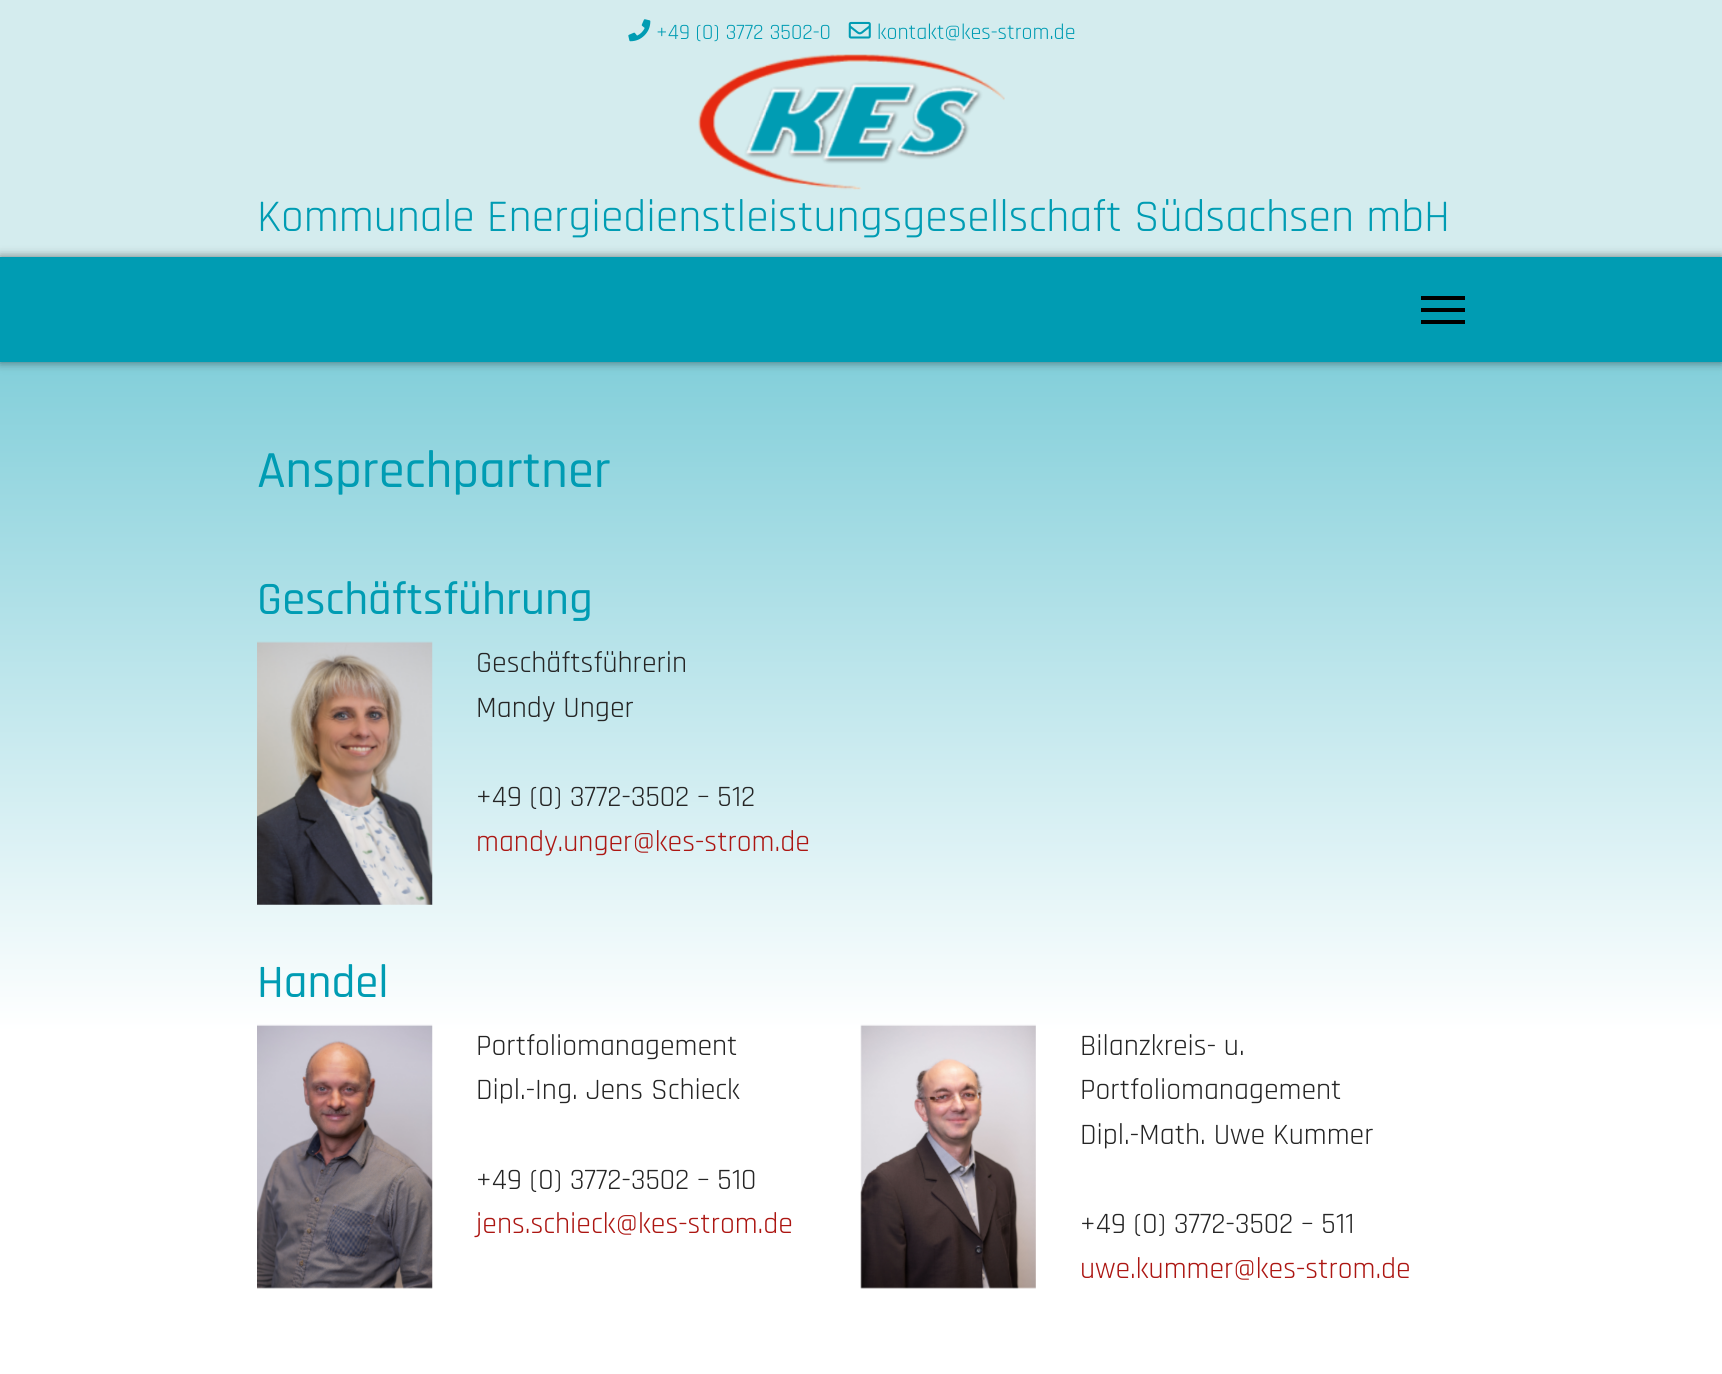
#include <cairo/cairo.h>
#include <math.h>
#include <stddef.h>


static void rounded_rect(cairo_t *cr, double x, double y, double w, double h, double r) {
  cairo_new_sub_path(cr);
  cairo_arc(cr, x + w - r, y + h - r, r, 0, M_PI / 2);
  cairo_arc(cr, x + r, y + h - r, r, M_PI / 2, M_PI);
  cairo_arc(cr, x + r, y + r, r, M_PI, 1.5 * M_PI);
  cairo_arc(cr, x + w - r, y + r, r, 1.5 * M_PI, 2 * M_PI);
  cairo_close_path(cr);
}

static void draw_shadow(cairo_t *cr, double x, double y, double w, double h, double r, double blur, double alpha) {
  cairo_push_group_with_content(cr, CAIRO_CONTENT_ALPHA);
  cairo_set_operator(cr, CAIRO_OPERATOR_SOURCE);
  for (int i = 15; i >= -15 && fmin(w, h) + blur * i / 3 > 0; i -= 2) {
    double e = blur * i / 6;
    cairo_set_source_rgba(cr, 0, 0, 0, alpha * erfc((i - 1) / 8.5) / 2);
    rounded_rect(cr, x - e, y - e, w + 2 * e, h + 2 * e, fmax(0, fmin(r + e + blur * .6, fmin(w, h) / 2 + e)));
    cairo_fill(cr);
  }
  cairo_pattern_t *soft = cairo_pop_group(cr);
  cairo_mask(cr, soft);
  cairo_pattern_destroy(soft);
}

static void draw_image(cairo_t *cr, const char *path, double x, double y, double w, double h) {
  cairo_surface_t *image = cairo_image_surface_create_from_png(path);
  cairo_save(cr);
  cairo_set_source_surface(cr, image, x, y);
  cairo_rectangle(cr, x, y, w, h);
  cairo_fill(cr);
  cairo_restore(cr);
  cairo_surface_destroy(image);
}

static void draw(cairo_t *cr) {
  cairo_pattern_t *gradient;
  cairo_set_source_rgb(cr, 212 / 255.0, 236 / 255.0, 238 / 255.0);
  cairo_paint(cr);
  draw_image(cr, "images/1.png", 628, 19, 23, 23);
  draw_image(cr, "images/2.png", 848, 21, 23, 18);
  draw_image(cr, "images/3.png", 698, 54, 307, 136);
  gradient = cairo_pattern_create_linear(861, 0, 861, 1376);
  cairo_pattern_add_color_stop_rgba(gradient, 0, 64 / 255.0, 181 / 255.0, 198 / 255.0, 1);
  cairo_pattern_add_color_stop_rgba(gradient, 0.75, 1, 1, 1, 1);
  cairo_set_source(cr, gradient);
  cairo_pattern_destroy(gradient);
  cairo_rectangle(cr, 0, 362, 1722, 1012);
  cairo_fill(cr);
  cairo_set_source_rgb(cr, 0, 0, 0);
  draw_shadow(cr, 0, 257, 1722, 105, 0, 5, 0.5);
  cairo_set_source_rgb(cr, 0, 156 / 255.0, 179 / 255.0);
  cairo_rectangle(cr, 0, 257, 1722, 105);
  cairo_fill(cr);
  cairo_set_source_rgb(cr, 0, 0, 0);
  cairo_rectangle(cr, 1421, 296, 44, 4);
  cairo_fill(cr);
  cairo_rectangle(cr, 1421, 308, 44, 4);
  cairo_fill(cr);
  cairo_rectangle(cr, 1421, 320, 44, 4);
  cairo_fill(cr);
  draw_image(cr, "images/4.png", 257, 641, 176, 264);
  draw_image(cr, "images/5.png", 257, 1024, 176, 265);
  draw_image(cr, "images/6.png", 860, 1024, 176, 265);
  cairo_select_font_face(cr, "Rajdhani", CAIRO_FONT_SLANT_NORMAL, CAIRO_FONT_WEIGHT_NORMAL);
  cairo_set_font_size(cr, 22);
  cairo_set_source_rgb(cr, 0, 156 / 255.0, 179 / 255.0);
  cairo_move_to(cr, 656, 39);
  cairo_show_text(cr, "+49 (0) 3772 3502-0");
  cairo_move_to(cr, 877, 39);
  cairo_show_text(cr, "kontakt@kes-strom.de");
  cairo_set_font_size(cr, 45.5);
  cairo_move_to(cr, 257, 231);
  cairo_show_text(cr, "Kommunale Energiedienstleistungsgesellschaft Südsachsen mbH");
  cairo_select_font_face(cr, "Rajdhani Medium", CAIRO_FONT_SLANT_NORMAL, CAIRO_FONT_WEIGHT_NORMAL);
  cairo_set_font_size(cr, 52.5);
  cairo_move_to(cr, 257, 487);
  cairo_show_text(cr, "Ansprechpartner");
  cairo_set_font_size(cr, 46.75);
  cairo_move_to(cr, 257, 614);
  cairo_show_text(cr, "Geschäftsführung");
  cairo_select_font_face(cr, "Rajdhani", CAIRO_FONT_SLANT_NORMAL, CAIRO_FONT_WEIGHT_NORMAL);
  cairo_set_font_size(cr, 29.75);
  cairo_set_source_rgb(cr, 37 / 255.0, 37 / 255.0, 37 / 255.0);
  cairo_move_to(cr, 476, 672);
  cairo_show_text(cr, "Geschäftsführerin");
  cairo_move_to(cr, 476, 717);
  cairo_show_text(cr, "Mandy Unger");
  cairo_move_to(cr, 476, 806);
  cairo_show_text(cr, "+49 (0) 3772-3502 – 512");
  cairo_set_source_rgb(cr, 172 / 255.0, 22 / 255.0, 18 / 255.0);
  cairo_move_to(cr, 476, 851);
  cairo_show_text(cr, "mandy.unger@kes-strom.de");
  cairo_select_font_face(cr, "Rajdhani Medium", CAIRO_FONT_SLANT_NORMAL, CAIRO_FONT_WEIGHT_NORMAL);
  cairo_set_font_size(cr, 46.75);
  cairo_set_source_rgb(cr, 0, 156 / 255.0, 179 / 255.0);
  cairo_move_to(cr, 257, 997);
  cairo_show_text(cr, "Handel");
  cairo_select_font_face(cr, "Rajdhani", CAIRO_FONT_SLANT_NORMAL, CAIRO_FONT_WEIGHT_NORMAL);
  cairo_set_font_size(cr, 29.75);
  cairo_set_source_rgb(cr, 37 / 255.0, 37 / 255.0, 37 / 255.0);
  cairo_move_to(cr, 476, 1055);
  cairo_show_text(cr, "Portfoliomanagement");
  cairo_move_to(cr, 476, 1099);
  cairo_show_text(cr, "Dipl.-Ing. Jens Schieck");
  cairo_move_to(cr, 476, 1189);
  cairo_show_text(cr, "+49 (0) 3772-3502 – 510");
  cairo_set_source_rgb(cr, 172 / 255.0, 22 / 255.0, 18 / 255.0);
  cairo_move_to(cr, 476, 1233);
  cairo_show_text(cr, "jens.schieck@kes-strom.de");
  cairo_set_source_rgb(cr, 37 / 255.0, 37 / 255.0, 37 / 255.0);
  cairo_move_to(cr, 1080, 1055);
  cairo_show_text(cr, "Bilanzkreis- u.");
  cairo_move_to(cr, 1080, 1099);
  cairo_show_text(cr, "Portfoliomanagement");
  cairo_move_to(cr, 1080, 1144);
  cairo_show_text(cr, "Dipl.-Math. Uwe Kummer");
  cairo_move_to(cr, 1080, 1233);
  cairo_show_text(cr, "+49 (0) 3772-3502 – 511");
  cairo_set_source_rgb(cr, 172 / 255.0, 22 / 255.0, 18 / 255.0);
  cairo_move_to(cr, 1080, 1278);
  cairo_show_text(cr, "uwe.kummer@kes-strom.de");
}

int main(void) {
  cairo_surface_t *surface = cairo_image_surface_create(CAIRO_FORMAT_RGB24, 1722, 1374);
  cairo_t *cr = cairo_create(surface);
  cairo_font_options_t *options = cairo_font_options_create();
  cairo_font_options_set_hint_metrics(options, CAIRO_HINT_METRICS_OFF);
  cairo_font_options_set_hint_style(options, CAIRO_HINT_STYLE_NONE);
  cairo_set_font_options(cr, options);
  cairo_set_miter_limit(cr, 4);
  draw(cr);
  cairo_surface_write_to_png(surface, "out.png");
  cairo_font_options_destroy(options);
  cairo_destroy(cr);
  cairo_surface_destroy(surface);
  return 0;
}
